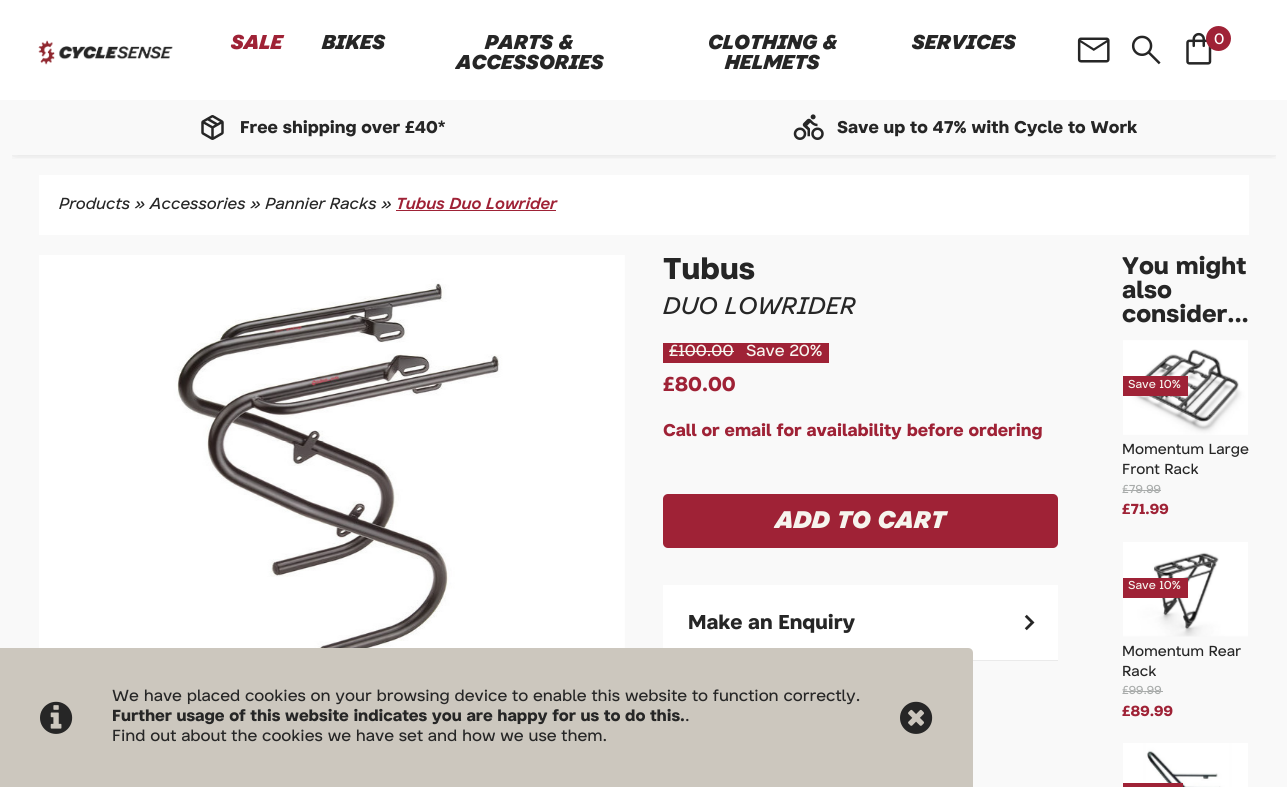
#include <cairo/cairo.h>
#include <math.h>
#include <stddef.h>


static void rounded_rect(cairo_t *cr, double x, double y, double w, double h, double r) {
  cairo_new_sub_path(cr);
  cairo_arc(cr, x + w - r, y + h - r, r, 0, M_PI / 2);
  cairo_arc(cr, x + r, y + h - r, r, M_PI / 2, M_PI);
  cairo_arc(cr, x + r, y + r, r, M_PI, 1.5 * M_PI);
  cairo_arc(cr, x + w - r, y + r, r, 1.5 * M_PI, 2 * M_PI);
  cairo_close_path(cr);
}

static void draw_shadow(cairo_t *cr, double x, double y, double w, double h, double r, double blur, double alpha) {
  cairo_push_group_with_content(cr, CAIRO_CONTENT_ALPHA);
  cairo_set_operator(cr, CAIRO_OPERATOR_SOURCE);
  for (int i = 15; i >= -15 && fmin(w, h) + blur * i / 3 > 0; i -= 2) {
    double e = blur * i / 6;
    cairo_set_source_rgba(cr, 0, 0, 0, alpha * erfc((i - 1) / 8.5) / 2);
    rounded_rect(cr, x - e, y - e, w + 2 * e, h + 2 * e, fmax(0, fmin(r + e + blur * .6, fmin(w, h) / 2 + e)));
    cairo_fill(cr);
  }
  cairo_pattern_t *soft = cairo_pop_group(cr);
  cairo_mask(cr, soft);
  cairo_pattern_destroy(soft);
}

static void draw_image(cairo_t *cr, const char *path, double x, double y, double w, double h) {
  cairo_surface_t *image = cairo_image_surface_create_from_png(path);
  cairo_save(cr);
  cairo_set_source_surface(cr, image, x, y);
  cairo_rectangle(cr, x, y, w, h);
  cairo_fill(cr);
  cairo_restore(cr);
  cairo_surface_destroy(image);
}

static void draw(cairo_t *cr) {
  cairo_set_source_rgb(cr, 249 / 255.0, 249 / 255.0, 249 / 255.0);
  cairo_paint(cr);
  cairo_save(cr);
  cairo_rectangle(cr, 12, 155, 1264, 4);
  cairo_clip(cr);
  cairo_set_source_rgb(cr, 38 / 255.0, 38 / 255.0, 38 / 255.0);
  draw_shadow(cr, 15, 119, 1258, 25, 0, 7.5, 1);
  cairo_restore(cr);
  cairo_set_source_rgb(cr, 1, 1, 1);
  cairo_rectangle(cr, 0, 0, 1287, 100);
  cairo_fill(cr);
  draw_image(cr, "images/1.png", 38, 40, 135, 25);
  draw_image(cr, "images/2.png", 1077, 37, 33, 26);
  draw_image(cr, "images/3.png", 1131, 35, 30, 30);
  draw_image(cr, "images/4.png", 1186, 32, 26, 33);
  cairo_set_source_rgb(cr, 159 / 255.0, 34 / 255.0, 54 / 255.0);
  cairo_arc(cr, 1218.5, 38.5, 12.5, 0, 2 * M_PI);
  cairo_fill(cr);
  draw_image(cr, "images/5.png", 201, 115, 23, 25);
  draw_image(cr, "images/6.png", 793, 114, 31, 26);
  cairo_set_source_rgb(cr, 1, 1, 1);
  cairo_rectangle(cr, 39, 175, 1210, 60);
  cairo_fill(cr);
  cairo_set_source_rgb(cr, 159 / 255.0, 34 / 255.0, 54 / 255.0);
  cairo_rectangle(cr, 396, 210, 160, 1);
  cairo_fill(cr);
  draw_image(cr, "images/7.png", 39, 255, 586, 393);
  cairo_rectangle(cr, 663, 343, 166, 20);
  cairo_fill(cr);
  cairo_set_source_rgb(cr, 246 / 255.0, 244 / 255.0, 238 / 255.0);
  cairo_rectangle(cr, 669, 351, 65, 1);
  cairo_fill(cr);
  cairo_set_source_rgb(cr, 159 / 255.0, 34 / 255.0, 54 / 255.0);
  rounded_rect(cr, 663, 494, 395, 54, 5);
  cairo_fill(cr);
  cairo_set_source_rgb(cr, 1, 1, 1);
  cairo_rectangle(cr, 663, 585, 395, 75);
  cairo_fill(cr);
  draw_image(cr, "images/8.png", 1024, 614, 11, 17);
  cairo_set_source_rgb(cr, 234 / 255.0, 234 / 255.0, 234 / 255.0);
  cairo_rectangle(cr, 973, 660, 85, 1);
  cairo_fill(cr);
  draw_image(cr, "images/9.png", 1123, 340, 125, 95);
  cairo_set_source_rgb(cr, 159 / 255.0, 34 / 255.0, 54 / 255.0);
  cairo_rectangle(cr, 1123, 376, 65, 20);
  cairo_fill(cr);
  cairo_set_source_rgb(cr, 169 / 255.0, 172 / 255.0, 171 / 255.0);
  cairo_rectangle(cr, 1123, 490, 38, 1);
  cairo_fill(cr);
  draw_image(cr, "images/10.png", 1123, 542, 125, 95);
  cairo_set_source_rgb(cr, 159 / 255.0, 34 / 255.0, 54 / 255.0);
  cairo_rectangle(cr, 1123, 578, 65, 20);
  cairo_fill(cr);
  cairo_set_source_rgb(cr, 169 / 255.0, 172 / 255.0, 171 / 255.0);
  cairo_rectangle(cr, 1123, 691, 40, 1);
  cairo_fill(cr);
  draw_image(cr, "images/11.png", 1123, 743, 125, 44);
  cairo_set_source_rgb(cr, 159 / 255.0, 34 / 255.0, 54 / 255.0);
  cairo_rectangle(cr, 1123, 783, 60, 4);
  cairo_fill(cr);
  cairo_set_source_rgb(cr, 204 / 255.0, 199 / 255.0, 190 / 255.0);
  cairo_new_path(cr);
  cairo_move_to(cr, 0, 648);
  cairo_line_to(cr, 968, 648);
  cairo_curve_to(cr, 971, 648, 973, 650, 973, 653);
  cairo_line_to(cr, 973, 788);
  cairo_line_to(cr, 0, 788);
  cairo_close_path(cr);
  cairo_fill(cr);
  draw_image(cr, "images/12.png", 40, 701, 33, 33);
  draw_image(cr, "images/13.png", 900, 701, 33, 33);
  cairo_select_font_face(cr, "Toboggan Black", CAIRO_FONT_SLANT_ITALIC, CAIRO_FONT_WEIGHT_NORMAL);
  cairo_set_font_size(cr, 20);
  cairo_set_source_rgb(cr, 159 / 255.0, 34 / 255.0, 54 / 255.0);
  cairo_move_to(cr, 231, 49);
  cairo_show_text(cr, "SALE");
  cairo_set_source_rgb(cr, 38 / 255.0, 38 / 255.0, 38 / 255.0);
  cairo_move_to(cr, 322, 49);
  cairo_show_text(cr, "BIKES");
  cairo_move_to(cr, 485, 49);
  cairo_show_text(cr, "PARTS &");
  cairo_move_to(cr, 456, 69);
  cairo_show_text(cr, "ACCESSORIES");
  cairo_move_to(cr, 708, 49);
  cairo_show_text(cr, "CLOTHING &");
  cairo_move_to(cr, 725, 69);
  cairo_show_text(cr, "HELMETS");
  cairo_move_to(cr, 912, 49);
  cairo_show_text(cr, "SERVICES");
  cairo_select_font_face(cr, "Toboggan", CAIRO_FONT_SLANT_NORMAL, CAIRO_FONT_WEIGHT_NORMAL);
  cairo_set_font_size(cr, 15);
  cairo_set_source_rgb(cr, 1, 1, 1);
  cairo_move_to(cr, 1214, 44);
  cairo_show_text(cr, "0");
  cairo_select_font_face(cr, "Toboggan", CAIRO_FONT_SLANT_NORMAL, CAIRO_FONT_WEIGHT_BOLD);
  cairo_set_font_size(cr, 17);
  cairo_set_source_rgb(cr, 38 / 255.0, 38 / 255.0, 38 / 255.0);
  cairo_move_to(cr, 240, 133);
  cairo_show_text(cr, "Free shipping over £40*");
  cairo_move_to(cr, 837, 133);
  cairo_show_text(cr, "Save up to 47% with Cycle to Work");
  cairo_select_font_face(cr, "Toboggan", CAIRO_FONT_SLANT_ITALIC, CAIRO_FONT_WEIGHT_NORMAL);
  cairo_set_font_size(cr, 16);
  cairo_move_to(cr, 59, 209);
  cairo_show_text(cr, "Products » Accessories » Pannier Racks »");
  cairo_select_font_face(cr, "Toboggan Medium", CAIRO_FONT_SLANT_ITALIC, CAIRO_FONT_WEIGHT_NORMAL);
  cairo_set_source_rgb(cr, 159 / 255.0, 34 / 255.0, 54 / 255.0);
  cairo_move_to(cr, 396, 209);
  cairo_show_text(cr, "Tubus Duo Lowrider");
  cairo_select_font_face(cr, "Toboggan", CAIRO_FONT_SLANT_NORMAL, CAIRO_FONT_WEIGHT_BOLD);
  cairo_set_font_size(cr, 30);
  cairo_set_source_rgb(cr, 38 / 255.0, 38 / 255.0, 38 / 255.0);
  cairo_move_to(cr, 663, 279);
  cairo_show_text(cr, "Tubus");
  cairo_select_font_face(cr, "Toboggan", CAIRO_FONT_SLANT_ITALIC, CAIRO_FONT_WEIGHT_NORMAL);
  cairo_set_font_size(cr, 24);
  cairo_move_to(cr, 663, 314);
  cairo_show_text(cr, "DUO LOWRIDER");
  cairo_select_font_face(cr, "Toboggan", CAIRO_FONT_SLANT_NORMAL, CAIRO_FONT_WEIGHT_NORMAL);
  cairo_set_font_size(cr, 16);
  cairo_set_source_rgb(cr, 246 / 255.0, 244 / 255.0, 238 / 255.0);
  cairo_move_to(cr, 669, 356);
  cairo_show_text(cr, "£100.00");
  cairo_move_to(cr, 746, 356);
  cairo_show_text(cr, "Save 20%");
  cairo_select_font_face(cr, "Toboggan", CAIRO_FONT_SLANT_NORMAL, CAIRO_FONT_WEIGHT_BOLD);
  cairo_set_font_size(cr, 20);
  cairo_set_source_rgb(cr, 159 / 255.0, 34 / 255.0, 54 / 255.0);
  cairo_move_to(cr, 663, 391);
  cairo_show_text(cr, "£80.00");
  cairo_set_font_size(cr, 17);
  cairo_move_to(cr, 663, 436);
  cairo_show_text(cr, "Call or email for availability before ordering");
  cairo_select_font_face(cr, "Toboggan Black", CAIRO_FONT_SLANT_ITALIC, CAIRO_FONT_WEIGHT_NORMAL);
  cairo_set_font_size(cr, 24);
  cairo_set_source_rgb(cr, 246 / 255.0, 244 / 255.0, 238 / 255.0);
  cairo_move_to(cr, 775, 528);
  cairo_show_text(cr, "ADD TO CART");
  cairo_select_font_face(cr, "Toboggan", CAIRO_FONT_SLANT_NORMAL, CAIRO_FONT_WEIGHT_BOLD);
  cairo_set_font_size(cr, 20);
  cairo_set_source_rgb(cr, 38 / 255.0, 38 / 255.0, 38 / 255.0);
  cairo_move_to(cr, 688, 629);
  cairo_show_text(cr, "Make an Enquiry");
  cairo_set_font_size(cr, 24);
  cairo_move_to(cr, 1122, 274);
  cairo_show_text(cr, "You might");
  cairo_move_to(cr, 1122, 298);
  cairo_show_text(cr, "also");
  cairo_move_to(cr, 1122, 322);
  cairo_show_text(cr, "consider...");
  cairo_select_font_face(cr, "Toboggan", CAIRO_FONT_SLANT_NORMAL, CAIRO_FONT_WEIGHT_NORMAL);
  cairo_set_font_size(cr, 11.5);
  cairo_set_source_rgb(cr, 246 / 255.0, 244 / 255.0, 238 / 255.0);
  cairo_move_to(cr, 1128, 388);
  cairo_show_text(cr, "Save 10%");
  cairo_set_source_rgb(cr, 169 / 255.0, 172 / 255.0, 171 / 255.0);
  cairo_move_to(cr, 1122, 493);
  cairo_show_text(cr, "£79.99");
  cairo_select_font_face(cr, "Toboggan", CAIRO_FONT_SLANT_NORMAL, CAIRO_FONT_WEIGHT_BOLD);
  cairo_set_font_size(cr, 14.5);
  cairo_set_source_rgb(cr, 159 / 255.0, 34 / 255.0, 54 / 255.0);
  cairo_move_to(cr, 1122, 514);
  cairo_show_text(cr, "£71.99");
  cairo_select_font_face(cr, "Toboggan", CAIRO_FONT_SLANT_NORMAL, CAIRO_FONT_WEIGHT_NORMAL);
  cairo_set_source_rgb(cr, 38 / 255.0, 38 / 255.0, 38 / 255.0);
  cairo_move_to(cr, 1122, 454);
  cairo_show_text(cr, "Momentum Large");
  cairo_move_to(cr, 1122, 474);
  cairo_show_text(cr, "Front Rack");
  cairo_set_font_size(cr, 11.5);
  cairo_set_source_rgb(cr, 246 / 255.0, 244 / 255.0, 238 / 255.0);
  cairo_move_to(cr, 1128, 589);
  cairo_show_text(cr, "Save 10%");
  cairo_set_source_rgb(cr, 169 / 255.0, 172 / 255.0, 171 / 255.0);
  cairo_move_to(cr, 1122, 694);
  cairo_show_text(cr, "£99.99");
  cairo_select_font_face(cr, "Toboggan", CAIRO_FONT_SLANT_NORMAL, CAIRO_FONT_WEIGHT_BOLD);
  cairo_set_font_size(cr, 14.5);
  cairo_set_source_rgb(cr, 159 / 255.0, 34 / 255.0, 54 / 255.0);
  cairo_move_to(cr, 1122, 716);
  cairo_show_text(cr, "£89.99");
  cairo_select_font_face(cr, "Toboggan", CAIRO_FONT_SLANT_NORMAL, CAIRO_FONT_WEIGHT_NORMAL);
  cairo_set_source_rgb(cr, 38 / 255.0, 38 / 255.0, 38 / 255.0);
  cairo_move_to(cr, 1122, 656);
  cairo_show_text(cr, "Momentum Rear");
  cairo_move_to(cr, 1122, 676);
  cairo_show_text(cr, "Rack");
  cairo_set_font_size(cr, 16);
  cairo_move_to(cr, 112, 701);
  cairo_show_text(cr, "We have placed cookies on your browsing device to enable this website to function correctly.");
  cairo_select_font_face(cr, "Toboggan", CAIRO_FONT_SLANT_NORMAL, CAIRO_FONT_WEIGHT_BOLD);
  cairo_move_to(cr, 112, 721);
  cairo_show_text(cr, "Further usage of this website indicates you are happy for us to do this.");
  cairo_select_font_face(cr, "Toboggan", CAIRO_FONT_SLANT_NORMAL, CAIRO_FONT_WEIGHT_NORMAL);
  cairo_move_to(cr, 685, 721);
  cairo_show_text(cr, ".");
  cairo_move_to(cr, 112, 741);
  cairo_show_text(cr, "Find out about the cookies we have set and how we use them.");
}

int main(void) {
  cairo_surface_t *surface = cairo_image_surface_create(CAIRO_FORMAT_RGB24, 1287, 787);
  cairo_t *cr = cairo_create(surface);
  cairo_font_options_t *options = cairo_font_options_create();
  cairo_font_options_set_hint_metrics(options, CAIRO_HINT_METRICS_OFF);
  cairo_font_options_set_hint_style(options, CAIRO_HINT_STYLE_NONE);
  cairo_set_font_options(cr, options);
  cairo_set_miter_limit(cr, 4);
  draw(cr);
  cairo_surface_write_to_png(surface, "out.png");
  cairo_font_options_destroy(options);
  cairo_destroy(cr);
  cairo_surface_destroy(surface);
  return 0;
}
